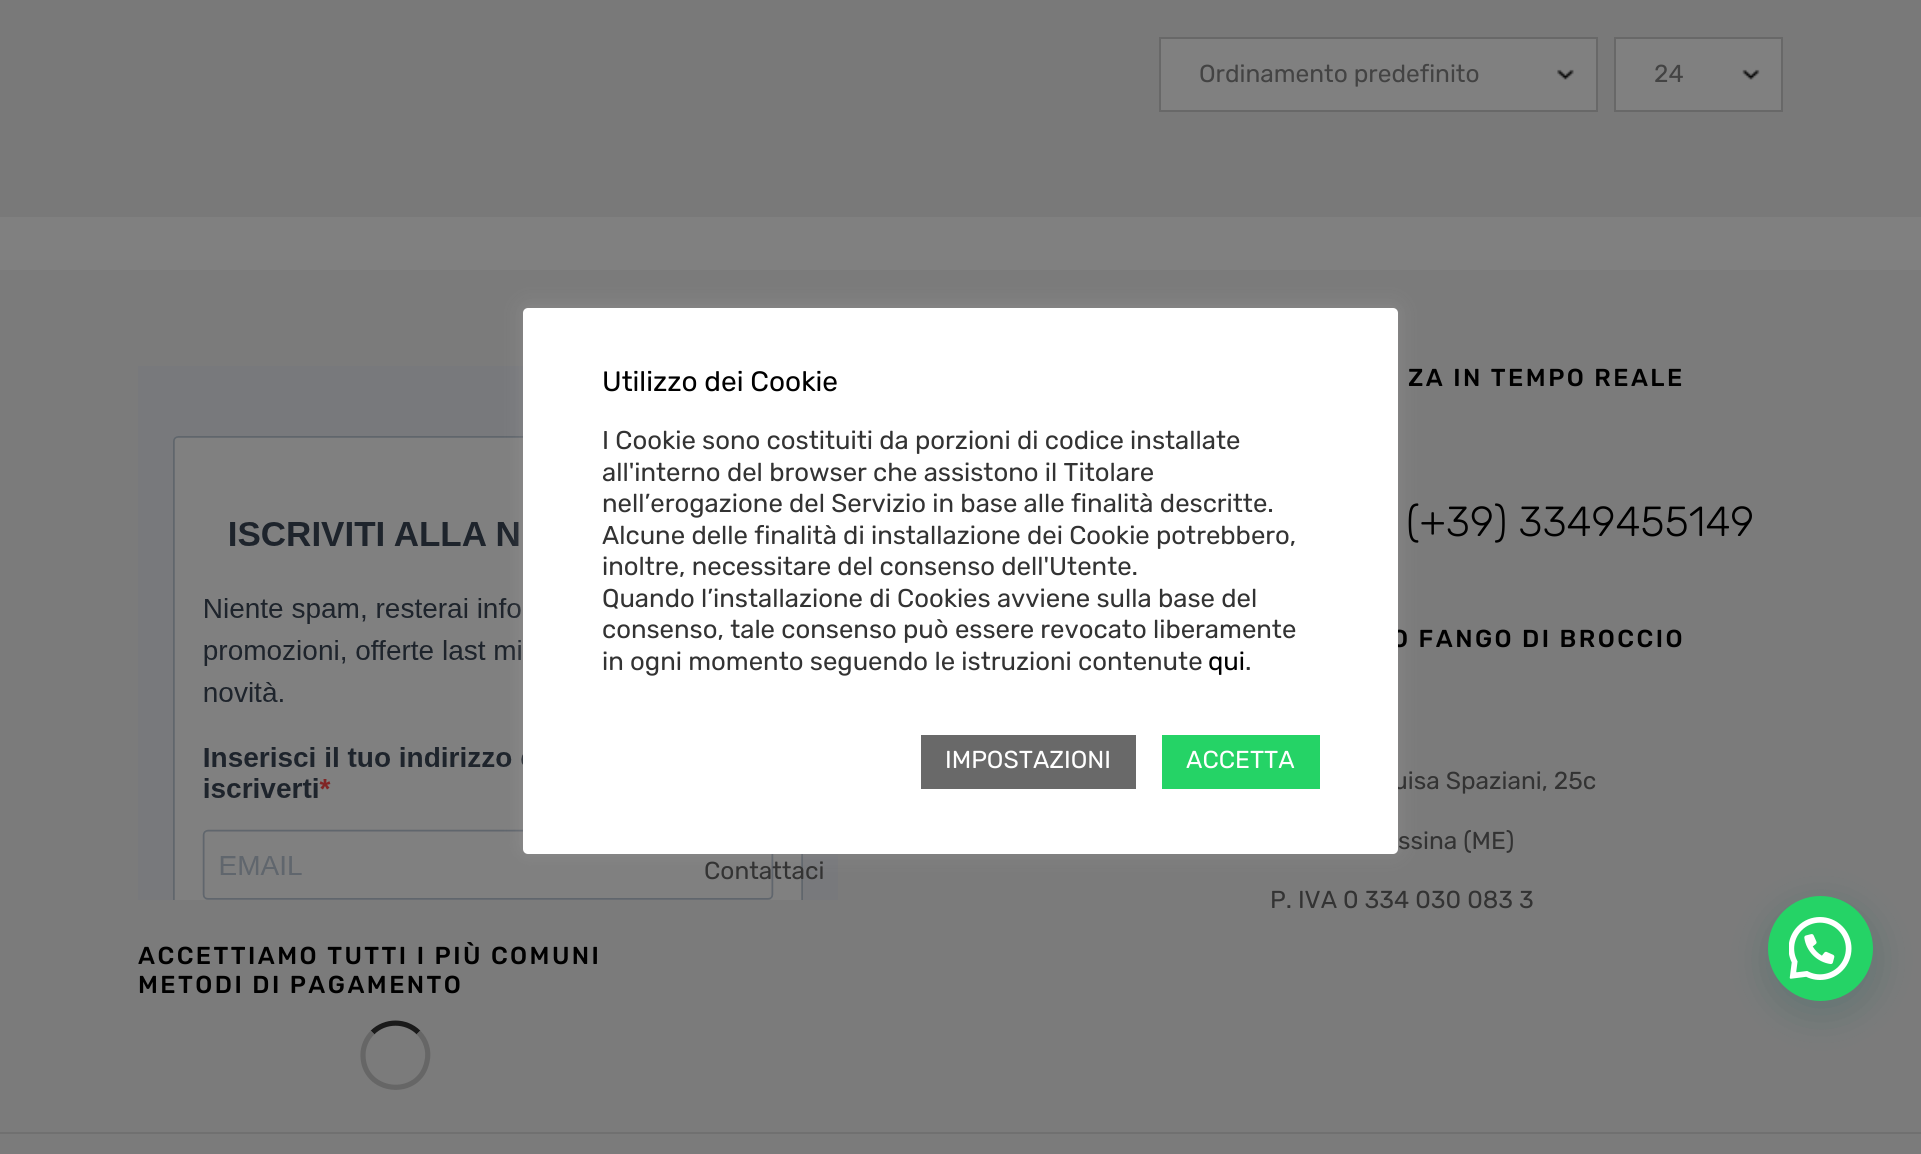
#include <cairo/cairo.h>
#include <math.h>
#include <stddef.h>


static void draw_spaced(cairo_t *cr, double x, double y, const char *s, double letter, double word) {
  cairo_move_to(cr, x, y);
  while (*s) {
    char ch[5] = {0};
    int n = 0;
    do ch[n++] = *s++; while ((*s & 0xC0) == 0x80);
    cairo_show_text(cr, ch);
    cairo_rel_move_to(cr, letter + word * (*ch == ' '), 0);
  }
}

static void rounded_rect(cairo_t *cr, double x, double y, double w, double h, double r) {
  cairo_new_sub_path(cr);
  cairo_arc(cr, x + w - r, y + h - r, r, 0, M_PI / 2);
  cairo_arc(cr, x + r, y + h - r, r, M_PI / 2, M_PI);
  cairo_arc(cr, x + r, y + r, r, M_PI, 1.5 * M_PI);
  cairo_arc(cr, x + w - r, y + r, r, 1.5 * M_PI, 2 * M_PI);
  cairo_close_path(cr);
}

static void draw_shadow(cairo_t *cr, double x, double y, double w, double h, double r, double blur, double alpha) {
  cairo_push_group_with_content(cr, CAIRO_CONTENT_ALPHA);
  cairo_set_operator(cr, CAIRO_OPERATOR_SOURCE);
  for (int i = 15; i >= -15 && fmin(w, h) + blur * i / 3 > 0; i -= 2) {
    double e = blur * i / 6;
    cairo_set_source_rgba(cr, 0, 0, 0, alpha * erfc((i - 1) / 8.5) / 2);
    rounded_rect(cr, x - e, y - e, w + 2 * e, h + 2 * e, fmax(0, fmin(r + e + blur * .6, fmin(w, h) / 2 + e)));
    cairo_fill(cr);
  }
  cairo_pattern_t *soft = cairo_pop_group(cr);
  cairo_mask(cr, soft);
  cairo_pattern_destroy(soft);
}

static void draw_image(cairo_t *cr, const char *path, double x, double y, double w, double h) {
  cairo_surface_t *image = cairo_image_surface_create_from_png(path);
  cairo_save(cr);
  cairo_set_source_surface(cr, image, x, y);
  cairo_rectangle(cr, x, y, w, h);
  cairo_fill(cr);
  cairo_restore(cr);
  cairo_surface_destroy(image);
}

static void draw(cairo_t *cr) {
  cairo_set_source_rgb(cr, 128 / 255.0, 128 / 255.0, 128 / 255.0);
  cairo_paint(cr);
  cairo_set_source_rgb(cr, 121 / 255.0, 121 / 255.0, 121 / 255.0);
  cairo_rectangle(cr, 0, 0, 1921, 217);
  cairo_fill(cr);
  cairo_set_source_rgb(cr, 128 / 255.0, 128 / 255.0, 128 / 255.0);
  cairo_rectangle(cr, 1161, 39, 435, 71);
  cairo_fill(cr);
  draw_image(cr, "images/1.png", 1557, 69, 17, 11);
  cairo_rectangle(cr, 1160, 38, 437, 73);
  cairo_set_source_rgb(cr, 104 / 255.0, 104 / 255.0, 104 / 255.0);
  cairo_stroke(cr);
  cairo_set_source_rgb(cr, 128 / 255.0, 128 / 255.0, 128 / 255.0);
  cairo_rectangle(cr, 1616, 39, 165, 71);
  cairo_fill(cr);
  draw_image(cr, "images/2.png", 1742, 69, 18, 11);
  cairo_rectangle(cr, 1615, 38, 167, 73);
  cairo_set_source_rgb(cr, 104 / 255.0, 104 / 255.0, 104 / 255.0);
  cairo_stroke(cr);
  cairo_set_source_rgb(cr, 123 / 255.0, 123 / 255.0, 123 / 255.0);
  cairo_rectangle(cr, 0, 270, 1921, 862);
  cairo_fill(cr);
  draw_image(cr, "images/3.png", 138, 366, 700, 534);
  cairo_new_path(cr);
  cairo_move_to(cr, 372.5, 1032.5);
  cairo_curve_to(cr, 385, 1020, 406, 1020, 418.5, 1032.5);
  cairo_set_source_rgb(cr, 26 / 255.0, 26 / 255.0, 26 / 255.0);
  cairo_set_line_width(cr, 5.2);
  cairo_stroke(cr);
  cairo_new_path(cr);
  cairo_move_to(cr, 418.5, 1032.5);
  cairo_curve_to(cr, 426, 1040, 429.5, 1051, 427, 1061.5);
  cairo_curve_to(cr, 419.5, 1099.5, 363, 1094, 363, 1055);
  cairo_curve_to(cr, 363, 1046.5, 366.5, 1038.5, 372.5, 1032.5);
  cairo_set_source_rgb(cr, 102 / 255.0, 102 / 255.0, 102 / 255.0);
  cairo_stroke(cr);
  cairo_set_source_rgb(cr, 123 / 255.0, 123 / 255.0, 123 / 255.0);
  cairo_rectangle(cr, 0, 1134, 1921, 20);
  cairo_fill(cr);
  cairo_set_source_rgb(cr, 112 / 255.0, 112 / 255.0, 112 / 255.0);
  cairo_rectangle(cr, 0, 1132, 1921, 2);
  cairo_fill(cr);
  cairo_set_source_rgb(cr, 172 / 255.0, 171 / 255.0, 171 / 255.0);
  draw_shadow(cr, 523, 306, 875, 546, 5, 9, 0.3);
  cairo_set_source_rgb(cr, 7 / 255.0, 94 / 255.0, 84 / 255.0);
  draw_shadow(cr, 1769, 907, 105, 105, 52.5, 21, 0.24);
  cairo_set_source_rgb(cr, 37 / 255.0, 211 / 255.0, 102 / 255.0);
  cairo_arc(cr, 1820.5, 948.5, 52.5, 0, 2 * M_PI);
  cairo_fill(cr);
  draw_image(cr, "images/4.png", 1789, 917, 63, 63);
  cairo_select_font_face(cr, "Rubik", CAIRO_FONT_SLANT_NORMAL, CAIRO_FONT_WEIGHT_NORMAL);
  cairo_set_font_size(cr, 24.5);
  cairo_set_source_rgb(cr, 67 / 255.0, 67 / 255.0, 67 / 255.0);
  cairo_move_to(cr, 1199, 82);
  cairo_show_text(cr, "Ordinamento predefinito");
  cairo_move_to(cr, 1654, 82);
  cairo_show_text(cr, "24");
  cairo_set_source_rgb(cr, 51 / 255.0, 51 / 255.0, 51 / 255.0);
  cairo_move_to(cr, 704, 879);
  cairo_show_text(cr, "Contattaci");
  cairo_select_font_face(cr, "Rubik Medium", CAIRO_FONT_SLANT_NORMAL, CAIRO_FONT_WEIGHT_NORMAL);
  cairo_set_source_rgb(cr, 0, 0, 0);
  draw_spaced(cr, 1408, 386, "ZA IN TEMPO REALE", 2.45, 0);
  cairo_select_font_face(cr, "Rubik Light", CAIRO_FONT_SLANT_NORMAL, CAIRO_FONT_WEIGHT_NORMAL);
  cairo_set_font_size(cr, 42);
  cairo_move_to(cr, 1406, 536);
  cairo_show_text(cr, "(+39) 3349455149");
  cairo_select_font_face(cr, "Rubik Medium", CAIRO_FONT_SLANT_NORMAL, CAIRO_FONT_WEIGHT_NORMAL);
  cairo_set_font_size(cr, 24.5);
  draw_spaced(cr, 1391, 647, "O FANGO DI BROCCIO", 2.45, 0);
  cairo_select_font_face(cr, "Rubik", CAIRO_FONT_SLANT_NORMAL, CAIRO_FONT_WEIGHT_NORMAL);
  cairo_set_source_rgb(cr, 51 / 255.0, 51 / 255.0, 51 / 255.0);
  cairo_move_to(cr, 1393, 789);
  cairo_show_text(cr, "uisa Spaziani, 25c");
  cairo_move_to(cr, 1398, 849);
  cairo_show_text(cr, "ssina (ME)");
  cairo_move_to(cr, 1270, 908);
  cairo_show_text(cr, "P. IVA 0 334 030 083 3");
  cairo_select_font_face(cr, "Rubik Medium", CAIRO_FONT_SLANT_NORMAL, CAIRO_FONT_WEIGHT_NORMAL);
  cairo_set_source_rgb(cr, 0, 0, 0);
  draw_spaced(cr, 138, 964, "ACCETTIAMO TUTTI I PIÙ COMUNI", 2.45, 0);
  draw_spaced(cr, 138, 993, "METODI DI PAGAMENTO", 2.45, 0);
  cairo_set_source_rgb(cr, 1, 1, 1);
  rounded_rect(cr, 523, 308, 875, 546, 5);
  cairo_fill(cr);
  cairo_select_font_face(cr, "Rubik", CAIRO_FONT_SLANT_NORMAL, CAIRO_FONT_WEIGHT_NORMAL);
  cairo_set_font_size(cr, 28);
  cairo_set_source_rgb(cr, 0, 0, 0);
  cairo_move_to(cr, 602, 391);
  cairo_show_text(cr, "Utilizzo dei Cookie");
  cairo_set_font_size(cr, 25.7);
  cairo_set_source_rgb(cr, 51 / 255.0, 51 / 255.0, 51 / 255.0);
  cairo_move_to(cr, 602, 449);
  cairo_show_text(cr, "I Cookie sono costituiti da porzioni di codice installate");
  cairo_move_to(cr, 602, 481);
  cairo_show_text(cr, "all'interno del browser che assistono il Titolare");
  cairo_move_to(cr, 602, 512);
  cairo_show_text(cr, "nell’erogazione del Servizio in base alle finalità descritte.");
  cairo_move_to(cr, 602, 544);
  cairo_show_text(cr, "Alcune delle finalità di installazione dei Cookie potrebbero,");
  cairo_move_to(cr, 602, 575);
  cairo_show_text(cr, "inoltre, necessitare del consenso dell'Utente.");
  cairo_move_to(cr, 602, 607);
  cairo_show_text(cr, "Quando l’installazione di Cookies avviene sulla base del");
  cairo_move_to(cr, 602, 638);
  cairo_show_text(cr, "consenso, tale consenso può essere revocato liberamente");
  cairo_move_to(cr, 602, 670);
  cairo_show_text(cr, "in ogni momento seguendo le istruzioni contenute");
  cairo_set_source_rgb(cr, 0, 0, 0);
  cairo_move_to(cr, 1208, 670);
  cairo_show_text(cr, "qui");
  cairo_set_source_rgb(cr, 51 / 255.0, 51 / 255.0, 51 / 255.0);
  cairo_move_to(cr, 1245, 670);
  cairo_show_text(cr, ".");
  cairo_set_source_rgb(cr, 105 / 255.0, 105 / 255.0, 105 / 255.0);
  cairo_rectangle(cr, 921, 735, 215, 54);
  cairo_fill(cr);
  cairo_set_font_size(cr, 24.5);
  cairo_set_source_rgb(cr, 1, 1, 1);
  cairo_move_to(cr, 945, 768);
  cairo_show_text(cr, "IMPOSTAZIONI");
  cairo_set_source_rgb(cr, 37 / 255.0, 211 / 255.0, 102 / 255.0);
  cairo_rectangle(cr, 1162, 735, 158, 54);
  cairo_fill(cr);
  cairo_set_source_rgb(cr, 1, 1, 1);
  cairo_move_to(cr, 1186, 768);
  cairo_show_text(cr, "ACCETTA");
}

int main(void) {
  cairo_surface_t *surface = cairo_image_surface_create(CAIRO_FORMAT_RGB24, 1921, 1154);
  cairo_t *cr = cairo_create(surface);
  cairo_font_options_t *options = cairo_font_options_create();
  cairo_font_options_set_hint_metrics(options, CAIRO_HINT_METRICS_OFF);
  cairo_font_options_set_hint_style(options, CAIRO_HINT_STYLE_NONE);
  cairo_set_font_options(cr, options);
  cairo_set_miter_limit(cr, 4);
  draw(cr);
  cairo_surface_write_to_png(surface, "out.png");
  cairo_font_options_destroy(options);
  cairo_destroy(cr);
  cairo_surface_destroy(surface);
  return 0;
}
